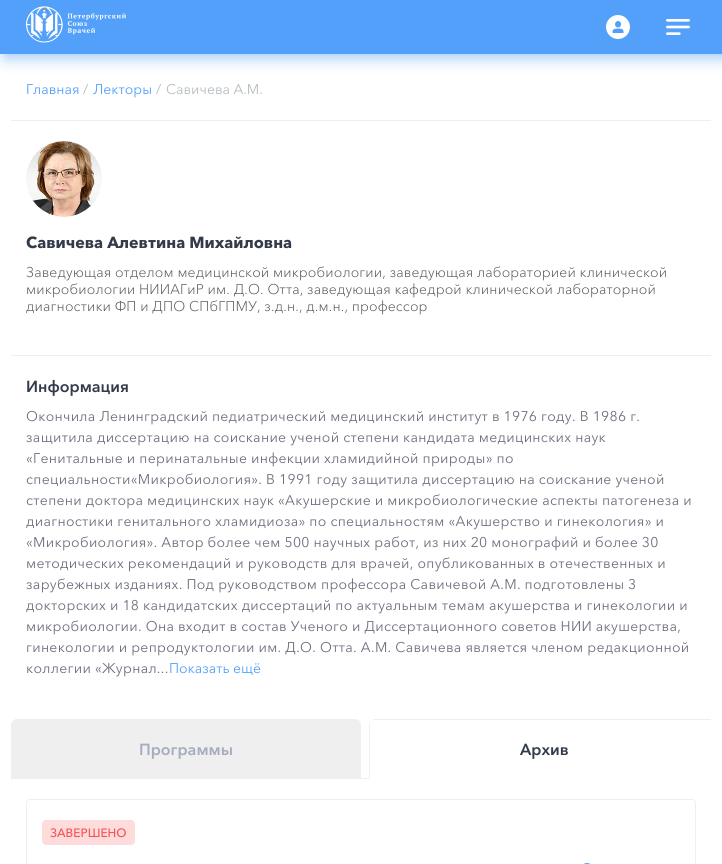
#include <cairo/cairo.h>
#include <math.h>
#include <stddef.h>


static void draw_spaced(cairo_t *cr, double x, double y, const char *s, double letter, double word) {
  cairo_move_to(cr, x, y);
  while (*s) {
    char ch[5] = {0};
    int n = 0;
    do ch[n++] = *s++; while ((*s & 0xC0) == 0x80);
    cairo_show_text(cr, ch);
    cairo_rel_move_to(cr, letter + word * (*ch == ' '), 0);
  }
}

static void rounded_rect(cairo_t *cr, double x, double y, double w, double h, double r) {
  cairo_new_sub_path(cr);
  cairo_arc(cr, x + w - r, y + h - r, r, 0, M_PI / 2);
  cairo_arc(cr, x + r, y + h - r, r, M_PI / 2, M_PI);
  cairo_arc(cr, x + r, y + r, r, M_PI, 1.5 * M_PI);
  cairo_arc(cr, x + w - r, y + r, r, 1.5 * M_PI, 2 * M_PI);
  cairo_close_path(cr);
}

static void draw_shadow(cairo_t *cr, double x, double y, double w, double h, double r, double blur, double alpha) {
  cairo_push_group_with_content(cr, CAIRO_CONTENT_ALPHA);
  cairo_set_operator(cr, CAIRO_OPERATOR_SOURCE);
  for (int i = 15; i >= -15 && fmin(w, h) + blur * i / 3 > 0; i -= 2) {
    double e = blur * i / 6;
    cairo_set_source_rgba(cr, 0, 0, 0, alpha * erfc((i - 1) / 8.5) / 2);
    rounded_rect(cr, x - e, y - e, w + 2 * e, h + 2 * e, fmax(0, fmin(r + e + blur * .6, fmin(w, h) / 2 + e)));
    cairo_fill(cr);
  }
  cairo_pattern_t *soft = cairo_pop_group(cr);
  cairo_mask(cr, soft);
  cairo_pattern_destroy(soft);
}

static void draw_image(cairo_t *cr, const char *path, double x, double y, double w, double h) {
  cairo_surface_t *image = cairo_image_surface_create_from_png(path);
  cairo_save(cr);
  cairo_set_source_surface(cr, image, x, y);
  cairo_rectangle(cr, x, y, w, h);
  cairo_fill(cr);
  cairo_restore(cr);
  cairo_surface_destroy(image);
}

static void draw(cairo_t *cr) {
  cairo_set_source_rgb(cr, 1, 1, 1);
  cairo_paint(cr);
  cairo_set_source_rgb(cr, 82 / 255.0, 160 / 255.0, 250 / 255.0);
  draw_shadow(cr, 5, 3, 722, 54, 0, 8, 0.61);
  cairo_set_source_rgb(cr, 82 / 255.0, 160 / 255.0, 250 / 255.0);
  cairo_rectangle(cr, 0, 0, 722, 54);
  cairo_fill(cr);
  draw_image(cr, "images/1.png", 26, 6, 100, 37);
  draw_image(cr, "images/2.png", 606, 15, 24, 24);
  draw_image(cr, "images/3.png", 666, 19, 24, 16);
  cairo_set_source_rgb(cr, 239 / 255.0, 239 / 255.0, 239 / 255.0);
  cairo_rectangle(cr, 11, 120, 700, 1);
  cairo_fill(cr);
  draw_image(cr, "images/4.png", 26, 141, 76, 76);
  cairo_rectangle(cr, 11, 355, 700, 1);
  cairo_fill(cr);
  cairo_new_path(cr);
  cairo_move_to(cr, 17, 719.5);
  cairo_line_to(cr, 355, 719.5);
  cairo_curve_to(cr, 358, 719.5, 360.5, 722, 360.5, 725);
  cairo_line_to(cr, 360.5, 778.5);
  cairo_line_to(cr, 11.5, 778.5);
  cairo_line_to(cr, 11.5, 725);
  cairo_curve_to(cr, 11.5, 722, 14, 719.5, 17, 719.5);
  cairo_close_path(cr);
  cairo_fill_preserve(cr);
  cairo_set_line_width(cr, 1);
  cairo_stroke(cr);
  cairo_save(cr);
  cairo_rectangle(cr, 11, 719, 700, 60);
  cairo_clip(cr);
  cairo_new_path(cr);
  cairo_move_to(cr, 375, 719);
  cairo_curve_to(cr, 374, 719, 372, 720, 371, 721);
  cairo_curve_to(cr, 372, 720, 374, 720, 375, 720);
  cairo_line_to(cr, 713, 720);
  cairo_curve_to(cr, 714, 720, 716, 720, 717, 721);
  cairo_curve_to(cr, 716, 720, 714, 719, 713, 719);
  cairo_close_path(cr);
  cairo_fill(cr);
  cairo_restore(cr);
  cairo_new_path(cr);
  cairo_move_to(cr, 369, 779);
  cairo_line_to(cr, 370, 778);
  cairo_line_to(cr, 370, 725);
  cairo_curve_to(cr, 370, 724, 370, 722, 371, 721);
  cairo_curve_to(cr, 370, 722, 369, 724, 369, 725);
  cairo_close_path(cr);
  cairo_fill(cr);
  cairo_rectangle(cr, 361, 778, 8, 1);
  cairo_fill(cr);
  rounded_rect(cr, 26.5, 799.5, 669, 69, 3.5);
  cairo_stroke(cr);
  cairo_set_source_rgb(cr, 254 / 255.0, 220 / 255.0, 220 / 255.0);
  rounded_rect(cr, 42, 820, 93, 25, 4);
  cairo_fill(cr);
  draw_image(cr, "images/5.png", 583, 863, 8, 1);
  cairo_select_font_face(cr, "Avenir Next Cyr", CAIRO_FONT_SLANT_NORMAL, CAIRO_FONT_WEIGHT_NORMAL);
  cairo_set_font_size(cr, 14);
  cairo_set_source_rgb(cr, 82 / 255.0, 160 / 255.0, 250 / 255.0);
  cairo_move_to(cr, 26, 94);
  cairo_show_text(cr, "Главная");
  cairo_set_source_rgb(cr, 181 / 255.0, 189 / 255.0, 194 / 255.0);
  cairo_move_to(cr, 83, 94);
  cairo_show_text(cr, "/");
  cairo_set_source_rgb(cr, 82 / 255.0, 160 / 255.0, 250 / 255.0);
  cairo_move_to(cr, 93, 94);
  cairo_show_text(cr, "Лекторы");
  cairo_set_source_rgb(cr, 181 / 255.0, 189 / 255.0, 194 / 255.0);
  cairo_move_to(cr, 156, 94);
  cairo_show_text(cr, "/");
  cairo_move_to(cr, 166, 94);
  cairo_show_text(cr, "Савичева А.М.");
  cairo_select_font_face(cr, "Avenir Next Cyr", CAIRO_FONT_SLANT_NORMAL, CAIRO_FONT_WEIGHT_BOLD);
  cairo_set_font_size(cr, 16);
  cairo_set_source_rgb(cr, 51 / 255.0, 59 / 255.0, 75 / 255.0);
  cairo_move_to(cr, 26, 248);
  cairo_show_text(cr, "Савичева Алевтина Михайловна");
  cairo_select_font_face(cr, "Avenir Next Cyr Light", CAIRO_FONT_SLANT_NORMAL, CAIRO_FONT_WEIGHT_NORMAL);
  cairo_set_font_size(cr, 14);
  cairo_set_source_rgb(cr, 82 / 255.0, 87 / 255.0, 92 / 255.0);
  draw_spaced(cr, 26, 277, "Заведующая отделом медицинской микробиологии, заведующая лабораторией клинической", 0.15, 0);
  draw_spaced(cr, 26, 294, "микробиологии НИИАГиР им. Д.О. Отта, заведующая кафедрой клинической лабораторной", 0.15, 0);
  draw_spaced(cr, 26, 311, "диагностики ФП и ДПО СПбГПМУ, з.д.н., д.м.н., профессор", 0.15, 0);
  cairo_select_font_face(cr, "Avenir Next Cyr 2", CAIRO_FONT_SLANT_NORMAL, CAIRO_FONT_WEIGHT_BOLD);
  cairo_set_font_size(cr, 16);
  cairo_set_source_rgb(cr, 51 / 255.0, 59 / 255.0, 75 / 255.0);
  cairo_move_to(cr, 26, 392);
  cairo_show_text(cr, "Информация");
  cairo_select_font_face(cr, "Avenir Next Cyr", CAIRO_FONT_SLANT_NORMAL, CAIRO_FONT_WEIGHT_NORMAL);
  cairo_set_font_size(cr, 14);
  cairo_set_source_rgb(cr, 109 / 255.0, 111 / 255.0, 126 / 255.0);
  draw_spaced(cr, 26, 421, "Окончила Ленинградский педиатрический медицинский институт в 1976 году. В 1986 г.", 0.3, 0);
  draw_spaced(cr, 26, 442, "защитила диссертацию на соискание ученой степени кандидата медицинских наук", 0.3, 0);
  draw_spaced(cr, 26, 463, "«Генитальные и перинатальные инфекции хламидийной природы» по", 0.3, 0);
  draw_spaced(cr, 26, 484, "специальности«Микробиология». В 1991 году защитила диссертацию на соискание ученой", 0.3, 0);
  draw_spaced(cr, 26, 505, "степени доктора медицинских наук «Акушерские и микробиологические аспекты патогенеза и", 0.3, 0);
  draw_spaced(cr, 26, 526, "диагностики генитального хламидиоза» по специальностям «Акушерство и гинекология» и", 0.3, 0);
  draw_spaced(cr, 26, 547, "«Микробиология». Автор более чем 500 научных работ, из них 20 монографий и более 30", 0.3, 0);
  draw_spaced(cr, 26, 568, "методических рекомендаций и руководств для врачей, опубликованных в отечественных и", 0.3, 0);
  draw_spaced(cr, 26, 589, "зарубежных изданиях. Под руководством профессора Савичевой А.М. подготовлены 3", 0.3, 0);
  draw_spaced(cr, 26, 610, "докторских и 18 кандидатских диссертаций по актуальным темам акушерства и гинекологии и", 0.3, 0);
  draw_spaced(cr, 26, 631, "микробиологии. Она входит в состав Ученого и Диссертационного советов НИИ акушерства,", 0.3, 0);
  draw_spaced(cr, 26, 652, "гинекологии и репродуктологии им. Д.О. Отта. А.М. Савичева является членом редакционной", 0.3, 0);
  draw_spaced(cr, 26, 673, "коллегии «Журнал...", 0.3, 0);
  cairo_set_source_rgb(cr, 82 / 255.0, 160 / 255.0, 250 / 255.0);
  cairo_move_to(cr, 169, 673);
  cairo_show_text(cr, "Показать ещё");
  cairo_select_font_face(cr, "Avenir Next Cyr 2", CAIRO_FONT_SLANT_NORMAL, CAIRO_FONT_WEIGHT_BOLD);
  cairo_set_font_size(cr, 16);
  cairo_set_source_rgb(cr, 166 / 255.0, 172 / 255.0, 190 / 255.0);
  cairo_move_to(cr, 139, 755);
  cairo_show_text(cr, "Программы");
  cairo_set_source_rgb(cr, 51 / 255.0, 59 / 255.0, 75 / 255.0);
  cairo_move_to(cr, 520, 755);
  cairo_show_text(cr, "Архив");
  cairo_select_font_face(cr, "Avenir Next Cyr Medium", CAIRO_FONT_SLANT_NORMAL, CAIRO_FONT_WEIGHT_NORMAL);
  cairo_set_font_size(cr, 12);
  cairo_set_source_rgb(cr, 251 / 255.0, 78 / 255.0, 78 / 255.0);
  cairo_move_to(cr, 50, 837);
  cairo_show_text(cr, "ЗАВЕРШЕНО");
}

int main(void) {
  cairo_surface_t *surface = cairo_image_surface_create(CAIRO_FORMAT_RGB24, 722, 864);
  cairo_t *cr = cairo_create(surface);
  cairo_font_options_t *options = cairo_font_options_create();
  cairo_font_options_set_hint_metrics(options, CAIRO_HINT_METRICS_OFF);
  cairo_font_options_set_hint_style(options, CAIRO_HINT_STYLE_NONE);
  cairo_set_font_options(cr, options);
  cairo_set_miter_limit(cr, 4);
  draw(cr);
  cairo_surface_write_to_png(surface, "out.png");
  cairo_font_options_destroy(options);
  cairo_destroy(cr);
  cairo_surface_destroy(surface);
  return 0;
}
